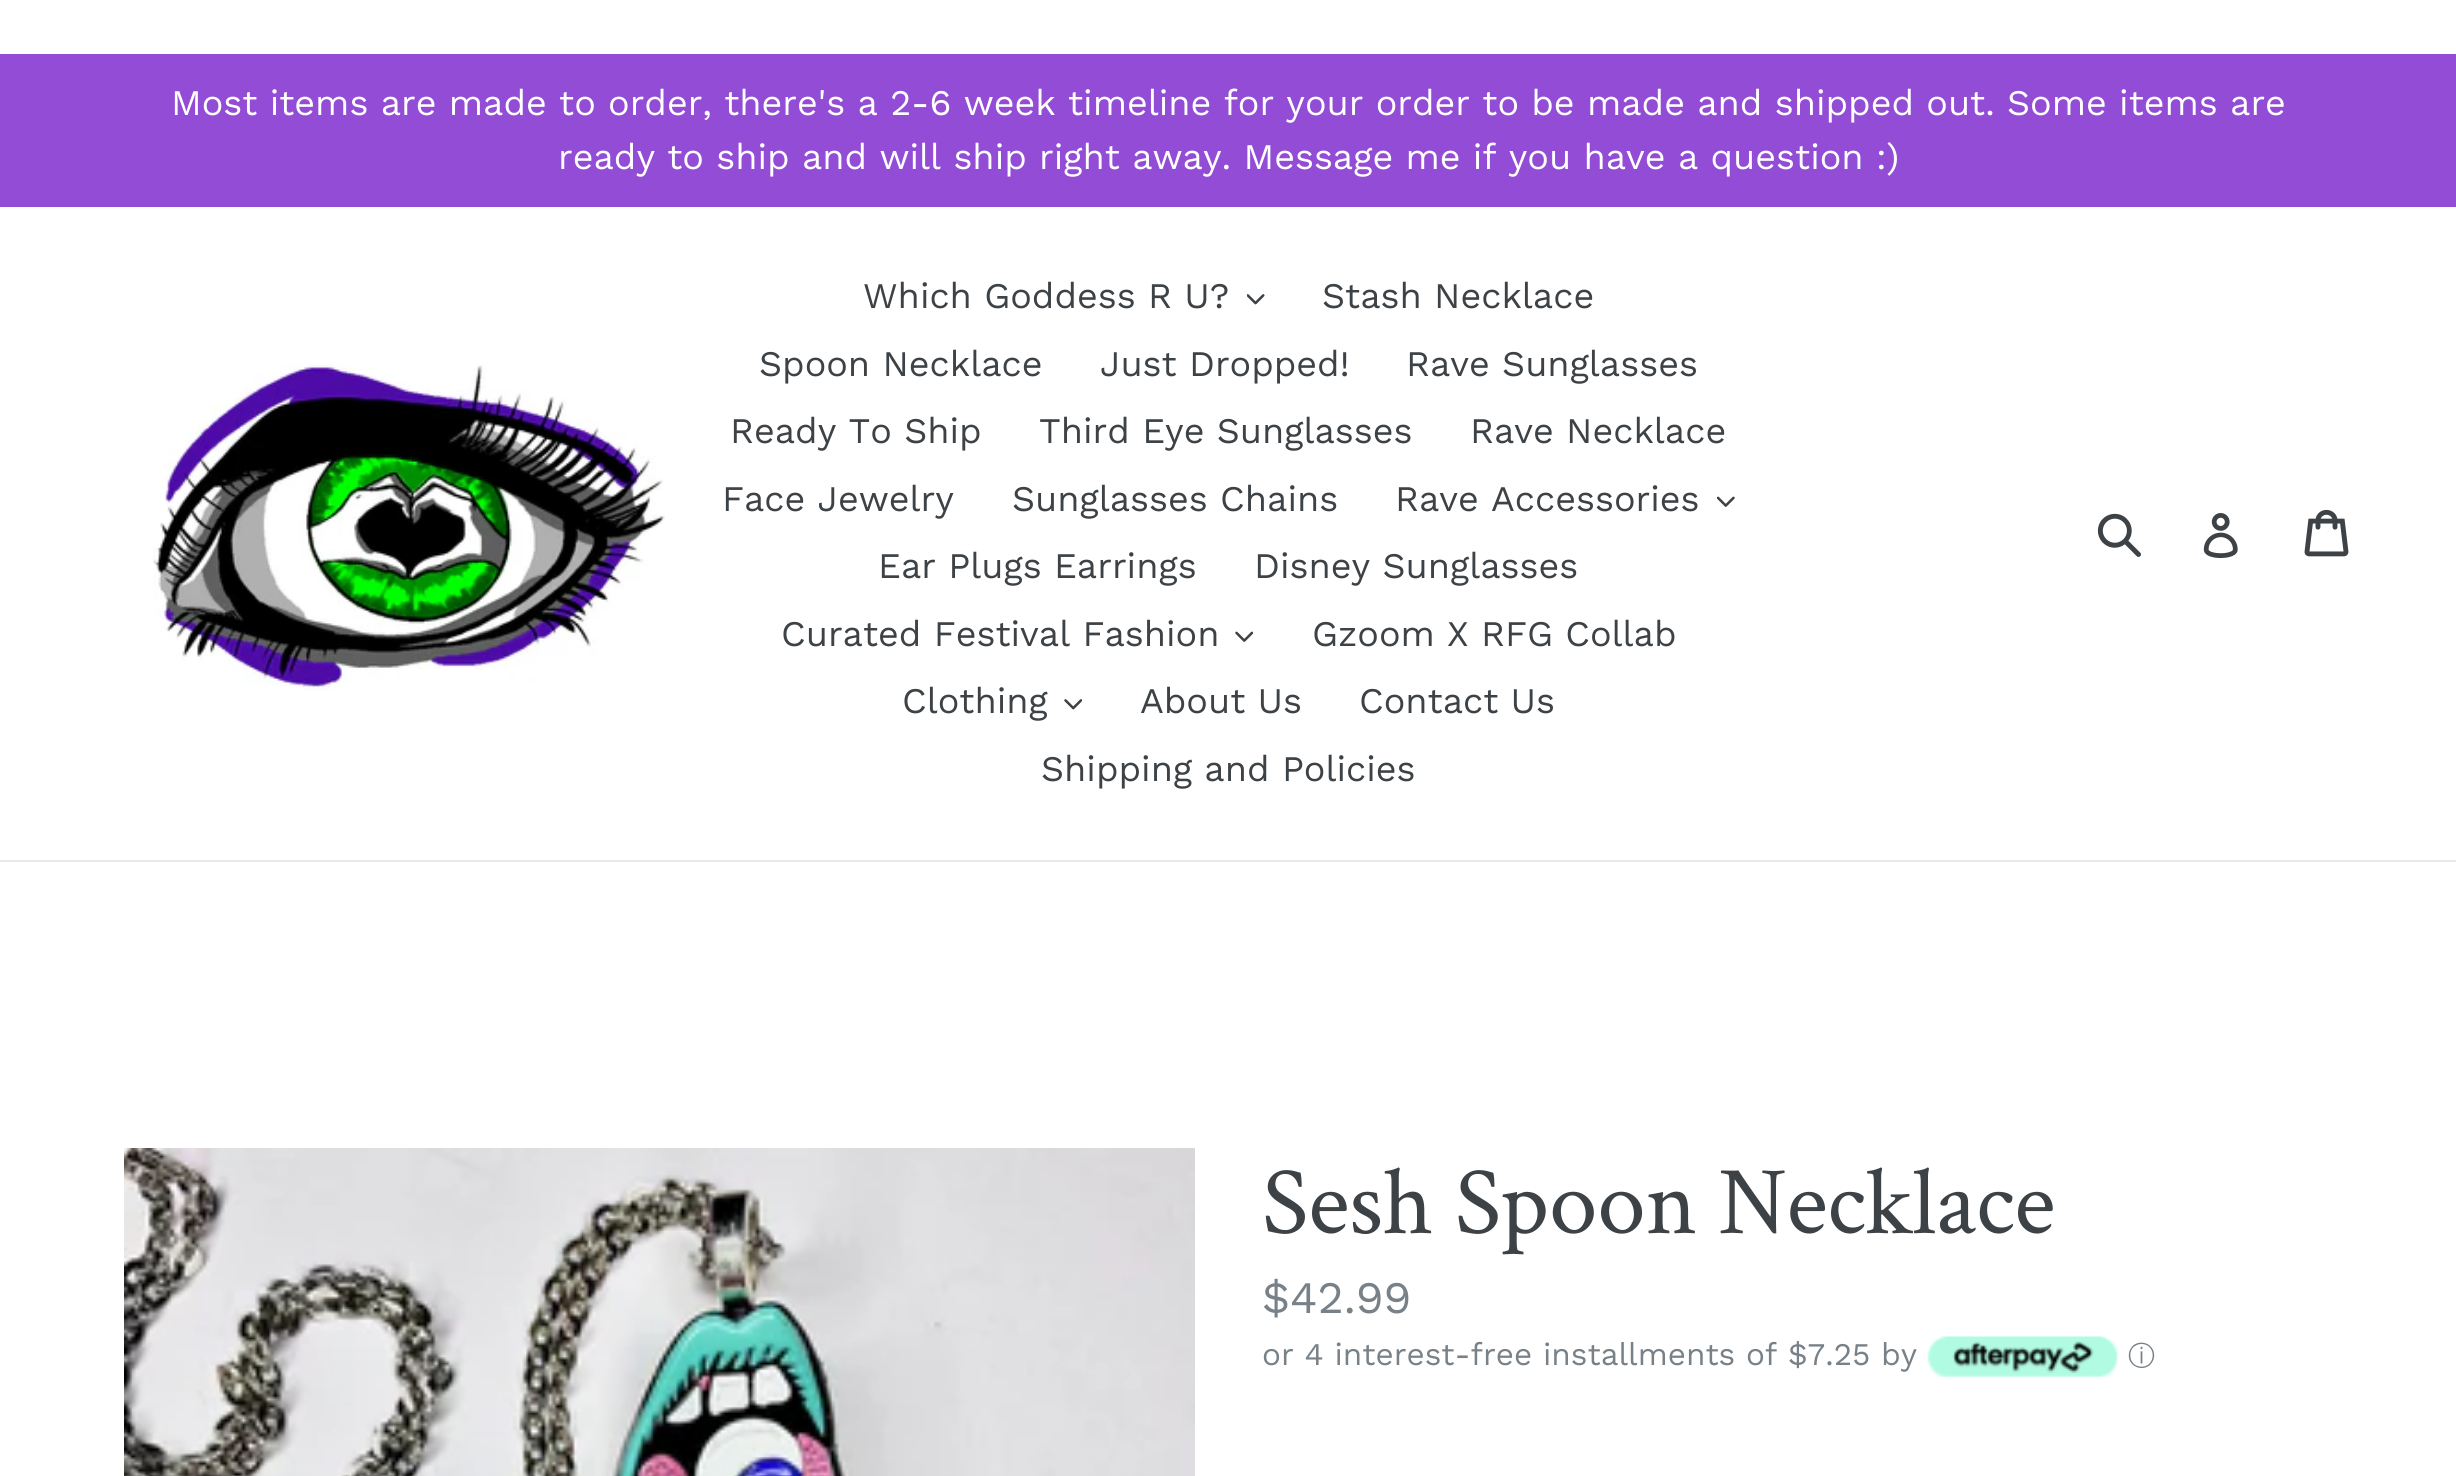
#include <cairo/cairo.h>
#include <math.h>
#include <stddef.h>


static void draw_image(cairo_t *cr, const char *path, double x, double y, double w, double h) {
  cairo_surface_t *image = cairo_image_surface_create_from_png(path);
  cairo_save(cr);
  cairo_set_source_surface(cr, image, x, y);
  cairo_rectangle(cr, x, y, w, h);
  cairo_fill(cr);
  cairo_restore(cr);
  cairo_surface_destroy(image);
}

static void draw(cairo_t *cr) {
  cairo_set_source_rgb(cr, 1, 1, 1);
  cairo_paint(cr);
  cairo_set_source_rgb(cr, 147 / 255.0, 76 / 255.0, 213 / 255.0);
  cairo_rectangle(cr, 0, 54, 2456, 153);
  cairo_fill(cr);
  cairo_set_source_rgb(cr, 232 / 255.0, 233 / 255.0, 235 / 255.0);
  cairo_rectangle(cr, 0, 860, 2456, 2);
  cairo_fill(cr);
  draw_image(cr, "images/1.png", 153, 364, 512, 327);
  draw_image(cr, "images/2.png", 1247, 294, 18, 11);
  draw_image(cr, "images/3.png", 1717, 496, 18, 11);
  draw_image(cr, "images/4.png", 1235, 631, 18, 11);
  draw_image(cr, "images/5.png", 1064, 699, 18, 11);
  draw_image(cr, "images/6.png", 2097, 513, 44, 44);
  draw_image(cr, "images/7.png", 2203, 513, 35, 45);
  draw_image(cr, "images/8.png", 2304, 509, 45, 48);
  draw_image(cr, "images/9.png", 124, 1148, 1071, 328);
  draw_image(cr, "images/10.png", 1927, 1336, 191, 41);
  cairo_select_font_face(cr, "Work Sans", CAIRO_FONT_SLANT_NORMAL, CAIRO_FONT_WEIGHT_NORMAL);
  cairo_set_font_size(cr, 36);
  cairo_set_source_rgb(cr, 1, 1, 1);
  cairo_move_to(cr, 171, 115);
  cairo_show_text(cr, "Most items are made to order, there's a 2-6 week timeline for your order to be made and shipped out. Some items are");
  cairo_move_to(cr, 558, 169);
  cairo_show_text(cr, "ready to ship and will ship right away. Message me if you have a question :)");
  cairo_set_source_rgb(cr, 61 / 255.0, 66 / 255.0, 70 / 255.0);
  cairo_move_to(cr, 863, 308);
  cairo_show_text(cr, "Which Goddess R U?");
  cairo_move_to(cr, 1322, 308);
  cairo_show_text(cr, "Stash Necklace");
  cairo_move_to(cr, 759, 376);
  cairo_show_text(cr, "Spoon Necklace");
  cairo_move_to(cr, 1100, 376);
  cairo_show_text(cr, "Just Dropped!");
  cairo_move_to(cr, 1406, 376);
  cairo_show_text(cr, "Rave Sunglasses");
  cairo_move_to(cr, 730, 443);
  cairo_show_text(cr, "Ready To Ship");
  cairo_move_to(cr, 1039, 443);
  cairo_show_text(cr, "Third Eye Sunglasses");
  cairo_move_to(cr, 1470, 443);
  cairo_show_text(cr, "Rave Necklace");
  cairo_move_to(cr, 722, 511);
  cairo_show_text(cr, "Face Jewelry");
  cairo_move_to(cr, 1012, 511);
  cairo_show_text(cr, "Sunglasses Chains");
  cairo_move_to(cr, 1395, 511);
  cairo_show_text(cr, "Rave Accessories");
  cairo_move_to(cr, 878, 578);
  cairo_show_text(cr, "Ear Plugs Earrings");
  cairo_move_to(cr, 1254, 578);
  cairo_show_text(cr, "Disney Sunglasses");
  cairo_move_to(cr, 781, 646);
  cairo_show_text(cr, "Curated Festival Fashion");
  cairo_move_to(cr, 1312, 646);
  cairo_show_text(cr, "Gzoom X RFG Collab");
  cairo_move_to(cr, 902, 713);
  cairo_show_text(cr, "Clothing");
  cairo_move_to(cr, 1140, 713);
  cairo_show_text(cr, "About Us");
  cairo_move_to(cr, 1359, 713);
  cairo_show_text(cr, "Contact Us");
  cairo_move_to(cr, 1041, 781);
  cairo_show_text(cr, "Shipping and Policies");
  cairo_select_font_face(cr, "Crimson Text", CAIRO_FONT_SLANT_NORMAL, CAIRO_FONT_WEIGHT_NORMAL);
  cairo_set_font_size(cr, 96.75);
  cairo_move_to(cr, 1262, 1233);
  cairo_show_text(cr, "Sesh Spoon Necklace");
  cairo_select_font_face(cr, "Work Sans", CAIRO_FONT_SLANT_NORMAL, CAIRO_FONT_WEIGHT_NORMAL);
  cairo_set_font_size(cr, 45);
  cairo_set_source_rgb(cr, 120 / 255.0, 129 / 255.0, 136 / 255.0);
  cairo_move_to(cr, 1262, 1313);
  cairo_show_text(cr, "$42.99");
  cairo_set_font_size(cr, 31.5);
  cairo_move_to(cr, 1262, 1365);
  cairo_show_text(cr, "or 4 interest-free installments of $7.25 by");
  cairo_select_font_face(cr, "WenQuanYi Zen Hei Medium", CAIRO_FONT_SLANT_NORMAL, CAIRO_FONT_WEIGHT_NORMAL);
  cairo_set_font_size(cr, 27);
  cairo_move_to(cr, 2128, 1365);
  cairo_show_text(cr, "ⓘ");
}

int main(void) {
  cairo_surface_t *surface = cairo_image_surface_create(CAIRO_FORMAT_RGB24, 2456, 1476);
  cairo_t *cr = cairo_create(surface);
  cairo_font_options_t *options = cairo_font_options_create();
  cairo_font_options_set_hint_metrics(options, CAIRO_HINT_METRICS_OFF);
  cairo_font_options_set_hint_style(options, CAIRO_HINT_STYLE_NONE);
  cairo_set_font_options(cr, options);
  cairo_set_miter_limit(cr, 4);
  draw(cr);
  cairo_surface_write_to_png(surface, "out.png");
  cairo_font_options_destroy(options);
  cairo_destroy(cr);
  cairo_surface_destroy(surface);
  return 0;
}
